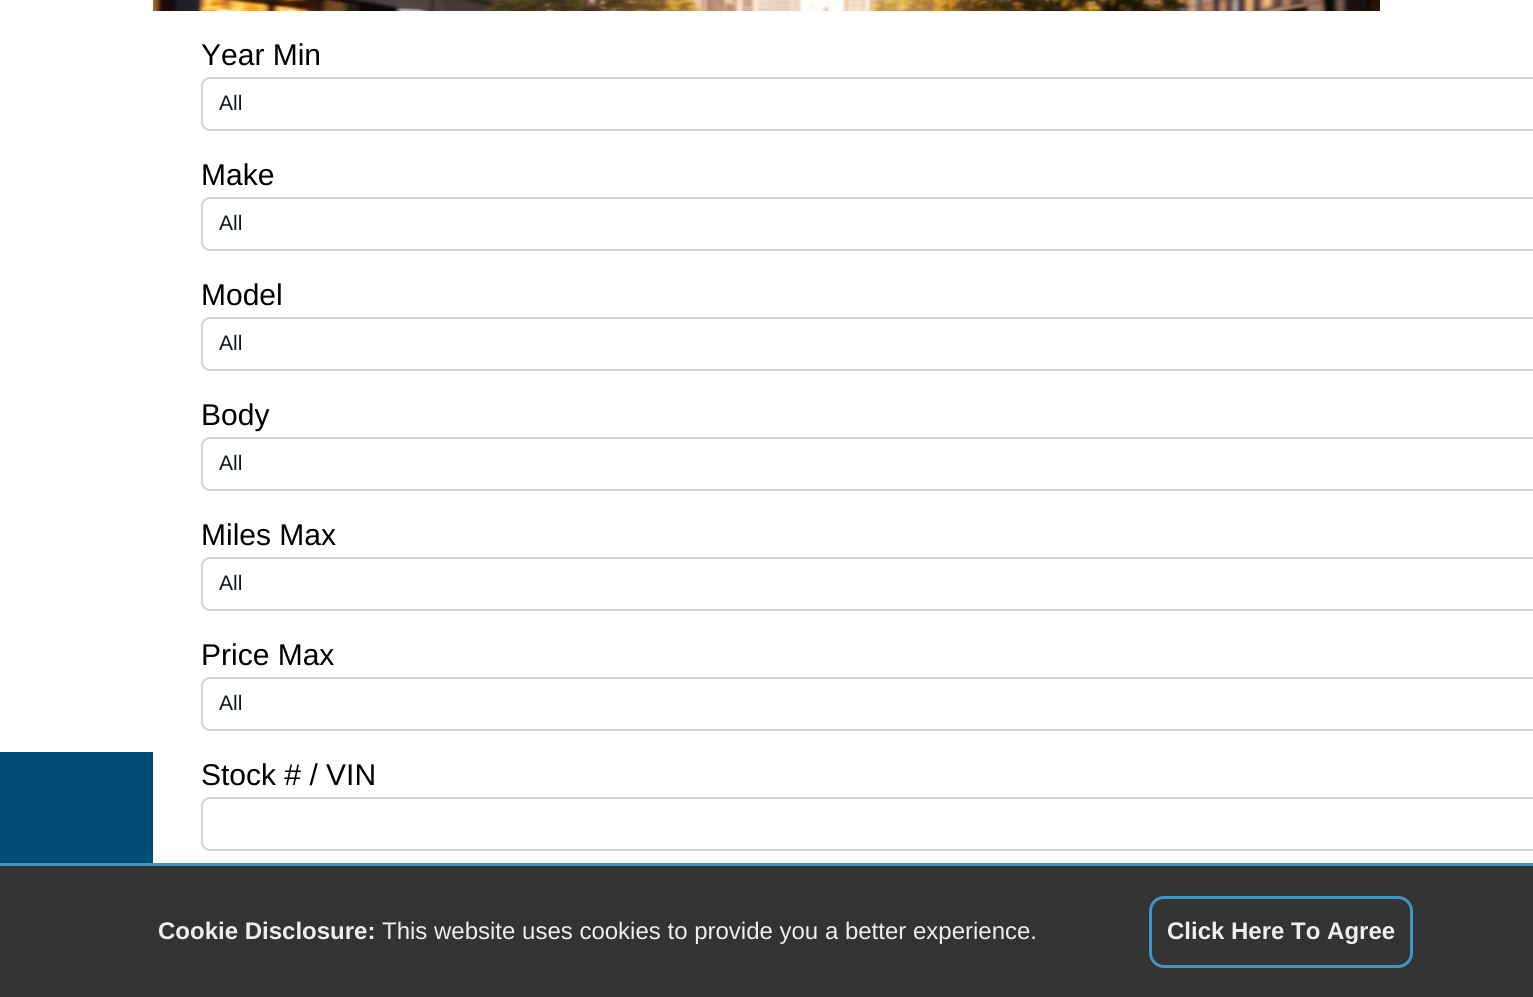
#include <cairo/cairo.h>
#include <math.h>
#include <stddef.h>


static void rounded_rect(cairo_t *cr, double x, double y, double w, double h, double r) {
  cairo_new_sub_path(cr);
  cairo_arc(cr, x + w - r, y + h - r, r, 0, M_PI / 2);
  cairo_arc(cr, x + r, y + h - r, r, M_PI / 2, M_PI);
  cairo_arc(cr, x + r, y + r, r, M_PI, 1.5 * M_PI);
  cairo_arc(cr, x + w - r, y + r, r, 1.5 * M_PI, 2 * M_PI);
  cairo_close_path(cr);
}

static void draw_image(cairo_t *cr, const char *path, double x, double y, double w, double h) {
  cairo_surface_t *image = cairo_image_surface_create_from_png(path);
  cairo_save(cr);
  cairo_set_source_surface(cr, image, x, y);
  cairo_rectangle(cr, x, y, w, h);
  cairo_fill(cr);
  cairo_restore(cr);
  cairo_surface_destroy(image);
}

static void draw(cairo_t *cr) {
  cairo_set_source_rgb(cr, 1, 1, 1);
  cairo_paint(cr);
  draw_image(cr, "images/1.png", 153, 0, 1227, 11);
  rounded_rect(cr, 202, 78, 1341, 52, 8);
  cairo_set_source_rgb(cr, 209 / 255.0, 213 / 255.0, 219 / 255.0);
  cairo_stroke(cr);
  rounded_rect(cr, 202, 198, 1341, 52, 8);
  cairo_stroke(cr);
  rounded_rect(cr, 202, 318, 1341, 52, 8);
  cairo_stroke(cr);
  rounded_rect(cr, 202, 438, 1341, 52, 8);
  cairo_stroke(cr);
  rounded_rect(cr, 202, 558, 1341, 52, 8);
  cairo_stroke(cr);
  rounded_rect(cr, 202, 678, 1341, 52, 8);
  cairo_stroke(cr);
  rounded_rect(cr, 202, 798, 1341, 52, 8);
  cairo_stroke(cr);
  cairo_set_source_rgb(cr, 0, 77 / 255.0, 121 / 255.0);
  cairo_rectangle(cr, 0, 752, 153, 111);
  cairo_fill(cr);
  cairo_set_source_rgb(cr, 62 / 255.0, 150 / 255.0, 192 / 255.0);
  cairo_rectangle(cr, 0, 863, 1533, 3);
  cairo_fill(cr);
  cairo_set_source_rgb(cr, 51 / 255.0, 51 / 255.0, 51 / 255.0);
  cairo_rectangle(cr, 0, 866, 1533, 131);
  cairo_fill(cr);
  rounded_rect(cr, 1150.5, 897.5, 261, 69, 13.5);
  cairo_set_source_rgb(cr, 62 / 255.0, 150 / 255.0, 192 / 255.0);
  cairo_set_line_width(cr, 3);
  cairo_stroke(cr);
  cairo_select_font_face(cr, "Liberation Sans", CAIRO_FONT_SLANT_NORMAL, CAIRO_FONT_WEIGHT_NORMAL);
  cairo_set_font_size(cr, 30);
  cairo_set_source_rgb(cr, 0, 0, 0);
  cairo_move_to(cr, 201, 65);
  cairo_show_text(cr, "Year Min");
  cairo_set_font_size(cr, 21);
  cairo_set_source_rgb(cr, 17 / 255.0, 24 / 255.0, 39 / 255.0);
  cairo_move_to(cr, 219, 110);
  cairo_show_text(cr, "All");
  cairo_set_font_size(cr, 30);
  cairo_set_source_rgb(cr, 0, 0, 0);
  cairo_move_to(cr, 201, 185);
  cairo_show_text(cr, "Make");
  cairo_set_font_size(cr, 21);
  cairo_set_source_rgb(cr, 17 / 255.0, 24 / 255.0, 39 / 255.0);
  cairo_move_to(cr, 219, 230);
  cairo_show_text(cr, "All");
  cairo_set_font_size(cr, 30);
  cairo_set_source_rgb(cr, 0, 0, 0);
  cairo_move_to(cr, 201, 305);
  cairo_show_text(cr, "Model");
  cairo_set_font_size(cr, 21);
  cairo_set_source_rgb(cr, 17 / 255.0, 24 / 255.0, 39 / 255.0);
  cairo_move_to(cr, 219, 350);
  cairo_show_text(cr, "All");
  cairo_set_font_size(cr, 30);
  cairo_set_source_rgb(cr, 0, 0, 0);
  cairo_move_to(cr, 201, 425);
  cairo_show_text(cr, "Body");
  cairo_set_font_size(cr, 21);
  cairo_set_source_rgb(cr, 17 / 255.0, 24 / 255.0, 39 / 255.0);
  cairo_move_to(cr, 219, 470);
  cairo_show_text(cr, "All");
  cairo_set_font_size(cr, 30);
  cairo_set_source_rgb(cr, 0, 0, 0);
  cairo_move_to(cr, 201, 545);
  cairo_show_text(cr, "Miles Max");
  cairo_set_font_size(cr, 21);
  cairo_set_source_rgb(cr, 17 / 255.0, 24 / 255.0, 39 / 255.0);
  cairo_move_to(cr, 219, 590);
  cairo_show_text(cr, "All");
  cairo_set_font_size(cr, 30);
  cairo_set_source_rgb(cr, 0, 0, 0);
  cairo_move_to(cr, 201, 665);
  cairo_show_text(cr, "Price Max");
  cairo_set_font_size(cr, 21);
  cairo_set_source_rgb(cr, 17 / 255.0, 24 / 255.0, 39 / 255.0);
  cairo_move_to(cr, 219, 710);
  cairo_show_text(cr, "All");
  cairo_set_font_size(cr, 30);
  cairo_set_source_rgb(cr, 0, 0, 0);
  cairo_move_to(cr, 201, 785);
  cairo_show_text(cr, "Stock # / VIN");
  cairo_select_font_face(cr, "Liberation Sans", CAIRO_FONT_SLANT_NORMAL, CAIRO_FONT_WEIGHT_BOLD);
  cairo_set_font_size(cr, 24);
  cairo_set_source_rgb(cr, 238 / 255.0, 238 / 255.0, 238 / 255.0);
  cairo_move_to(cr, 158, 939);
  cairo_show_text(cr, "Cookie Disclosure:");
  cairo_select_font_face(cr, "Liberation Sans", CAIRO_FONT_SLANT_NORMAL, CAIRO_FONT_WEIGHT_NORMAL);
  cairo_move_to(cr, 382, 939);
  cairo_show_text(cr, "This website uses cookies to provide you a better experience.");
  cairo_select_font_face(cr, "Liberation Sans", CAIRO_FONT_SLANT_NORMAL, CAIRO_FONT_WEIGHT_BOLD);
  cairo_move_to(cr, 1167, 939);
  cairo_show_text(cr, "Click Here To Agree");
}

int main(void) {
  cairo_surface_t *surface = cairo_image_surface_create(CAIRO_FORMAT_RGB24, 1533, 997);
  cairo_t *cr = cairo_create(surface);
  cairo_font_options_t *options = cairo_font_options_create();
  cairo_font_options_set_hint_metrics(options, CAIRO_HINT_METRICS_OFF);
  cairo_font_options_set_hint_style(options, CAIRO_HINT_STYLE_NONE);
  cairo_set_font_options(cr, options);
  cairo_set_miter_limit(cr, 4);
  draw(cr);
  cairo_surface_write_to_png(surface, "out.png");
  cairo_font_options_destroy(options);
  cairo_destroy(cr);
  cairo_surface_destroy(surface);
  return 0;
}
